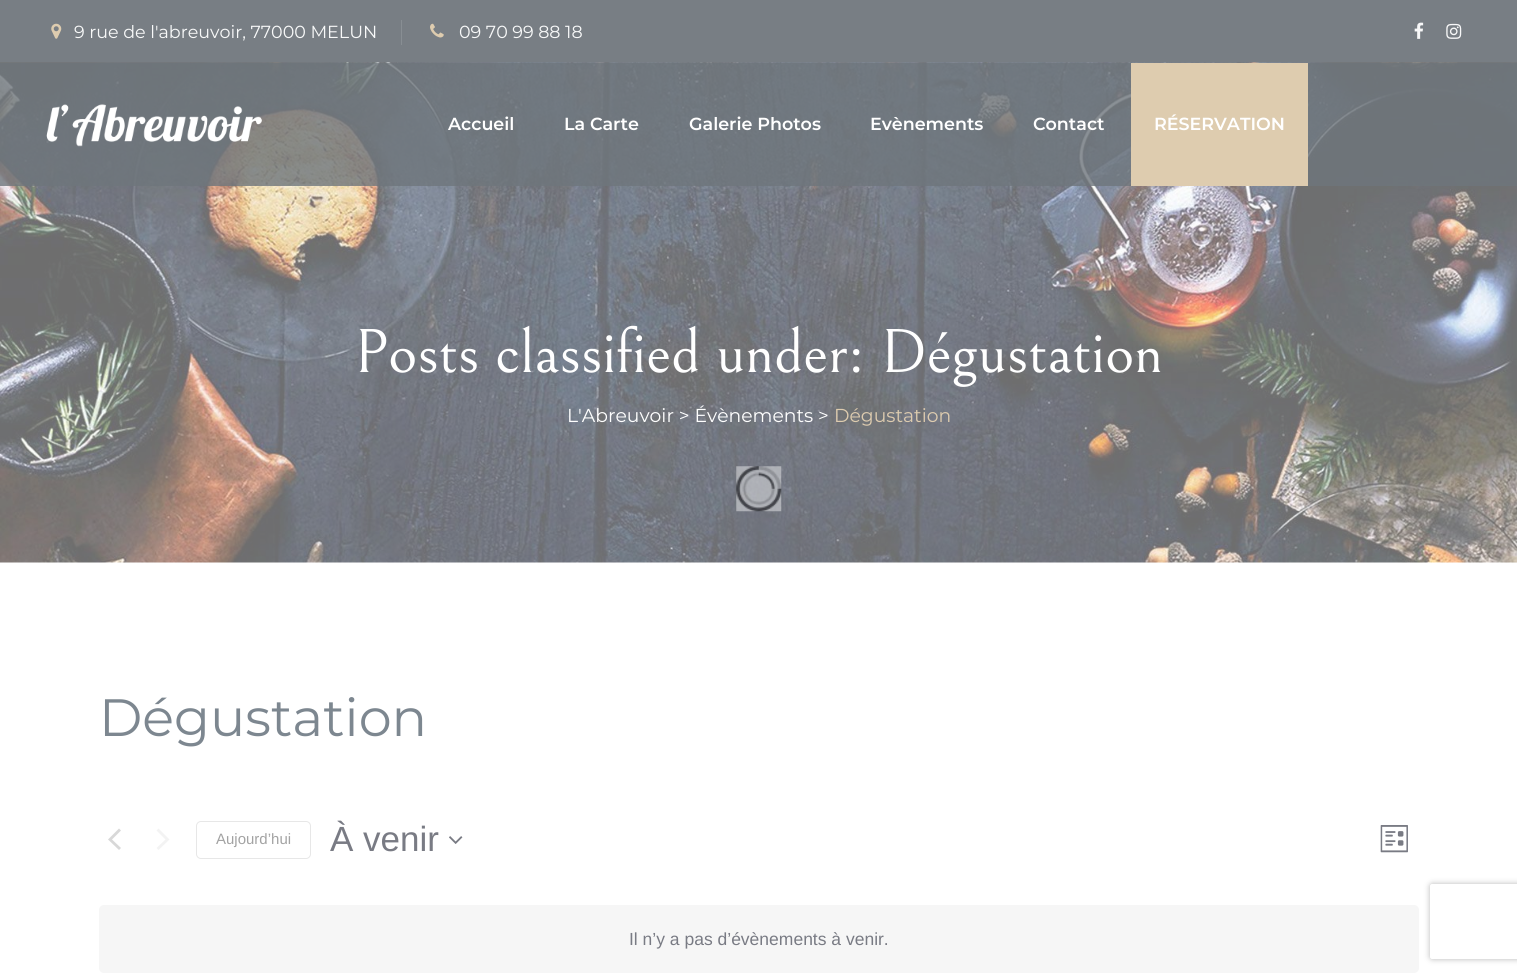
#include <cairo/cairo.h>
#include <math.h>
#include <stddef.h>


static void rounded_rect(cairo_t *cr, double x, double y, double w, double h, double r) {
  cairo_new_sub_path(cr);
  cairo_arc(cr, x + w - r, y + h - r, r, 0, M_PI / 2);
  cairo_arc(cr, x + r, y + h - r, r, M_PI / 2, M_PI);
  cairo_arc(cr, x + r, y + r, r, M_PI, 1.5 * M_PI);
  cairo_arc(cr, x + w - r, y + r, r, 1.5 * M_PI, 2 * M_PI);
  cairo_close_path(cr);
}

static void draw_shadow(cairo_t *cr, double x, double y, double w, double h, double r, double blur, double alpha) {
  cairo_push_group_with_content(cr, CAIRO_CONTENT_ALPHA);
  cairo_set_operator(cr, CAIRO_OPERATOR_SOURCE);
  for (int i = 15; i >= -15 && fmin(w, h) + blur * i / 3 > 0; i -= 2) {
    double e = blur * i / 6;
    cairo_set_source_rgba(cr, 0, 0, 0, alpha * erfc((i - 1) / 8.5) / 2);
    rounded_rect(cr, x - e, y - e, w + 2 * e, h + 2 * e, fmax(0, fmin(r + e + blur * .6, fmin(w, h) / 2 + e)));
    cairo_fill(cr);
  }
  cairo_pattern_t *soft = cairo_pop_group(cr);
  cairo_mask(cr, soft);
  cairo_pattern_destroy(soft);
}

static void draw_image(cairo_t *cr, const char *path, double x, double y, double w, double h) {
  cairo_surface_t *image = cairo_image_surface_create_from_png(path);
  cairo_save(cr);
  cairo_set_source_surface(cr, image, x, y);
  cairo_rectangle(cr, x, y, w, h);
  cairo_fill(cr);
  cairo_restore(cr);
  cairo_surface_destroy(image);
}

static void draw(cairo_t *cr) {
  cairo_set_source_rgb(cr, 1, 1, 1);
  cairo_paint(cr);
  cairo_set_source_rgb(cr, 120 / 255.0, 126 / 255.0, 132 / 255.0);
  cairo_rectangle(cr, 0, 0, 1517, 63);
  cairo_fill(cr);
  draw_image(cr, "images/1.png", 51, 23, 11, 16);
  cairo_set_source_rgb(cr, 136 / 255.0, 142 / 255.0, 147 / 255.0);
  cairo_rectangle(cr, 401, 20, 1, 25);
  cairo_fill(cr);
  draw_image(cr, "images/2.png", 430, 23, 14, 15);
  draw_image(cr, "images/3.png", 1414, 22, 10, 17);
  draw_image(cr, "images/4.png", 1446, 23, 16, 16);
  draw_image(cr, "images/6.png", 0, 62, 1517, 501);
  cairo_set_source_rgba(cr, 110 / 255.0, 118 / 255.0, 124 / 255.0, 0.8);
  cairo_rectangle(cr, 0, 63, 1517, 123);
  cairo_fill(cr);
  draw_image(cr, "images/5.png", 46, 104, 216, 43);
  cairo_set_source_rgb(cr, 222 / 255.0, 204 / 255.0, 175 / 255.0);
  cairo_rectangle(cr, 1131, 63, 177, 123);
  cairo_fill(cr);
  cairo_set_source_rgb(cr, 216 / 255.0, 216 / 255.0, 216 / 255.0);
  cairo_new_path(cr);
  cairo_move_to(cr, 121, 848);
  cairo_line_to(cr, 119, 850);
  cairo_line_to(cr, 108, 839.5);
  cairo_line_to(cr, 119, 828.5);
  cairo_line_to(cr, 121, 830.5);
  cairo_line_to(cr, 112, 839.5);
  cairo_close_path(cr);
  cairo_fill(cr);
  cairo_set_source_rgb(cr, 243 / 255.0, 243 / 255.0, 243 / 255.0);
  cairo_new_path(cr);
  cairo_move_to(cr, 156.5, 830.5);
  cairo_line_to(cr, 158.5, 828.5);
  cairo_line_to(cr, 169.5, 839.5);
  cairo_line_to(cr, 158.5, 850);
  cairo_line_to(cr, 156.5, 848);
  cairo_line_to(cr, 165.5, 839.5);
  cairo_close_path(cr);
  cairo_fill(cr);
  rounded_rect(cr, 196.5, 821.5, 114, 37, 4.5);
  cairo_set_source_rgb(cr, 231 / 255.0, 231 / 255.0, 231 / 255.0);
  cairo_set_line_width(cr, 1);
  cairo_stroke(cr);
  draw_image(cr, "images/7.png", 449, 836, 14, 8);
  draw_image(cr, "images/8.png", 1380, 825, 28, 28);
  cairo_set_source_rgb(cr, 246 / 255.0, 246 / 255.0, 246 / 255.0);
  rounded_rect(cr, 99, 905, 1320, 68, 5);
  cairo_fill(cr);
  draw_image(cr, "images/9.png", 736, 466, 46, 46);
  cairo_save(cr);
  cairo_set_fill_rule(cr, CAIRO_FILL_RULE_EVEN_ODD);
  cairo_new_path(cr);
  cairo_move_to(cr, 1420, 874);
  cairo_line_to(cr, 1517, 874);
  cairo_line_to(cr, 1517, 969);
  cairo_line_to(cr, 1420, 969);
  cairo_close_path(cr);
  cairo_move_to(cr, 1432.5, 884);
  cairo_line_to(cr, 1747.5, 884);
  cairo_curve_to(cr, 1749, 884, 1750, 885, 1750, 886.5);
  cairo_line_to(cr, 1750, 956.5);
  cairo_curve_to(cr, 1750, 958, 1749, 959, 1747.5, 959);
  cairo_line_to(cr, 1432.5, 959);
  cairo_curve_to(cr, 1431, 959, 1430, 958, 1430, 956.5);
  cairo_line_to(cr, 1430, 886.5);
  cairo_curve_to(cr, 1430, 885, 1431, 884, 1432.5, 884);
  cairo_close_path(cr);
  cairo_clip(cr);
  cairo_set_source_rgb(cr, 183 / 255.0, 183 / 255.0, 183 / 255.0);
  draw_shadow(cr, 1430, 884, 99, 75, 2.5, 3, 1);
  cairo_restore(cr);
  cairo_select_font_face(cr, "Montserrat", CAIRO_FONT_SLANT_NORMAL, CAIRO_FONT_WEIGHT_NORMAL);
  cairo_set_font_size(cr, 17.5);
  cairo_set_source_rgb(cr, 248 / 255.0, 249 / 255.0, 249 / 255.0);
  cairo_move_to(cr, 74, 38);
  cairo_show_text(cr, "9 rue de l'abreuvoir, 77000 MELUN");
  cairo_move_to(cr, 459, 38);
  cairo_show_text(cr, "09 70 99 88 18");
  cairo_select_font_face(cr, "Montserrat SemiBold", CAIRO_FONT_SLANT_NORMAL, CAIRO_FONT_WEIGHT_NORMAL);
  cairo_set_source_rgb(cr, 1, 1, 1);
  cairo_move_to(cr, 448, 130);
  cairo_show_text(cr, "Accueil");
  cairo_move_to(cr, 564, 130);
  cairo_show_text(cr, "La Carte");
  cairo_move_to(cr, 689, 130);
  cairo_show_text(cr, "Galerie Photos");
  cairo_move_to(cr, 870, 130);
  cairo_show_text(cr, "Evènements");
  cairo_move_to(cr, 1033, 130);
  cairo_show_text(cr, "Contact");
  cairo_move_to(cr, 1154, 130);
  cairo_show_text(cr, "RÉSERVATION");
  cairo_select_font_face(cr, "Bellefair", CAIRO_FONT_SLANT_NORMAL, CAIRO_FONT_WEIGHT_NORMAL);
  cairo_set_font_size(cr, 62.5);
  cairo_move_to(cr, 354, 372);
  cairo_show_text(cr, "Posts classified under: Dégustation");
  cairo_select_font_face(cr, "Montserrat", CAIRO_FONT_SLANT_NORMAL, CAIRO_FONT_WEIGHT_NORMAL);
  cairo_set_font_size(cr, 18.75);
  cairo_move_to(cr, 567, 422);
  cairo_show_text(cr, "L'Abreuvoir > Évènements >");
  cairo_set_source_rgb(cr, 222 / 255.0, 204 / 255.0, 175 / 255.0);
  cairo_move_to(cr, 834, 422);
  cairo_show_text(cr, "Dégustation");
  cairo_set_font_size(cr, 52.5);
  cairo_set_source_rgb(cr, 125 / 255.0, 135 / 255.0, 144 / 255.0);
  cairo_move_to(cr, 99, 736);
  cairo_show_text(cr, "Dégustation");
  cairo_select_font_face(cr, "Liberation Sans", CAIRO_FONT_SLANT_NORMAL, CAIRO_FONT_WEIGHT_NORMAL);
  cairo_set_font_size(cr, 15);
  cairo_set_source_rgb(cr, 163 / 255.0, 163 / 255.0, 163 / 255.0);
  cairo_move_to(cr, 216, 844);
  cairo_show_text(cr, "Aujourd’hui");
  cairo_set_font_size(cr, 35);
  cairo_set_source_rgb(cr, 121 / 255.0, 123 / 255.0, 132 / 255.0);
  cairo_move_to(cr, 330, 851);
  cairo_show_text(cr, "À venir");
  cairo_set_font_size(cr, 17.5);
  cairo_move_to(cr, 629, 945);
  cairo_show_text(cr, "Il n’y a pas d’évènements à venir.");
}

int main(void) {
  cairo_surface_t *surface = cairo_image_surface_create(CAIRO_FORMAT_RGB24, 1517, 976);
  cairo_t *cr = cairo_create(surface);
  cairo_font_options_t *options = cairo_font_options_create();
  cairo_font_options_set_hint_metrics(options, CAIRO_HINT_METRICS_OFF);
  cairo_font_options_set_hint_style(options, CAIRO_HINT_STYLE_NONE);
  cairo_set_font_options(cr, options);
  cairo_set_miter_limit(cr, 4);
  draw(cr);
  cairo_surface_write_to_png(surface, "out.png");
  cairo_font_options_destroy(options);
  cairo_destroy(cr);
  cairo_surface_destroy(surface);
  return 0;
}
